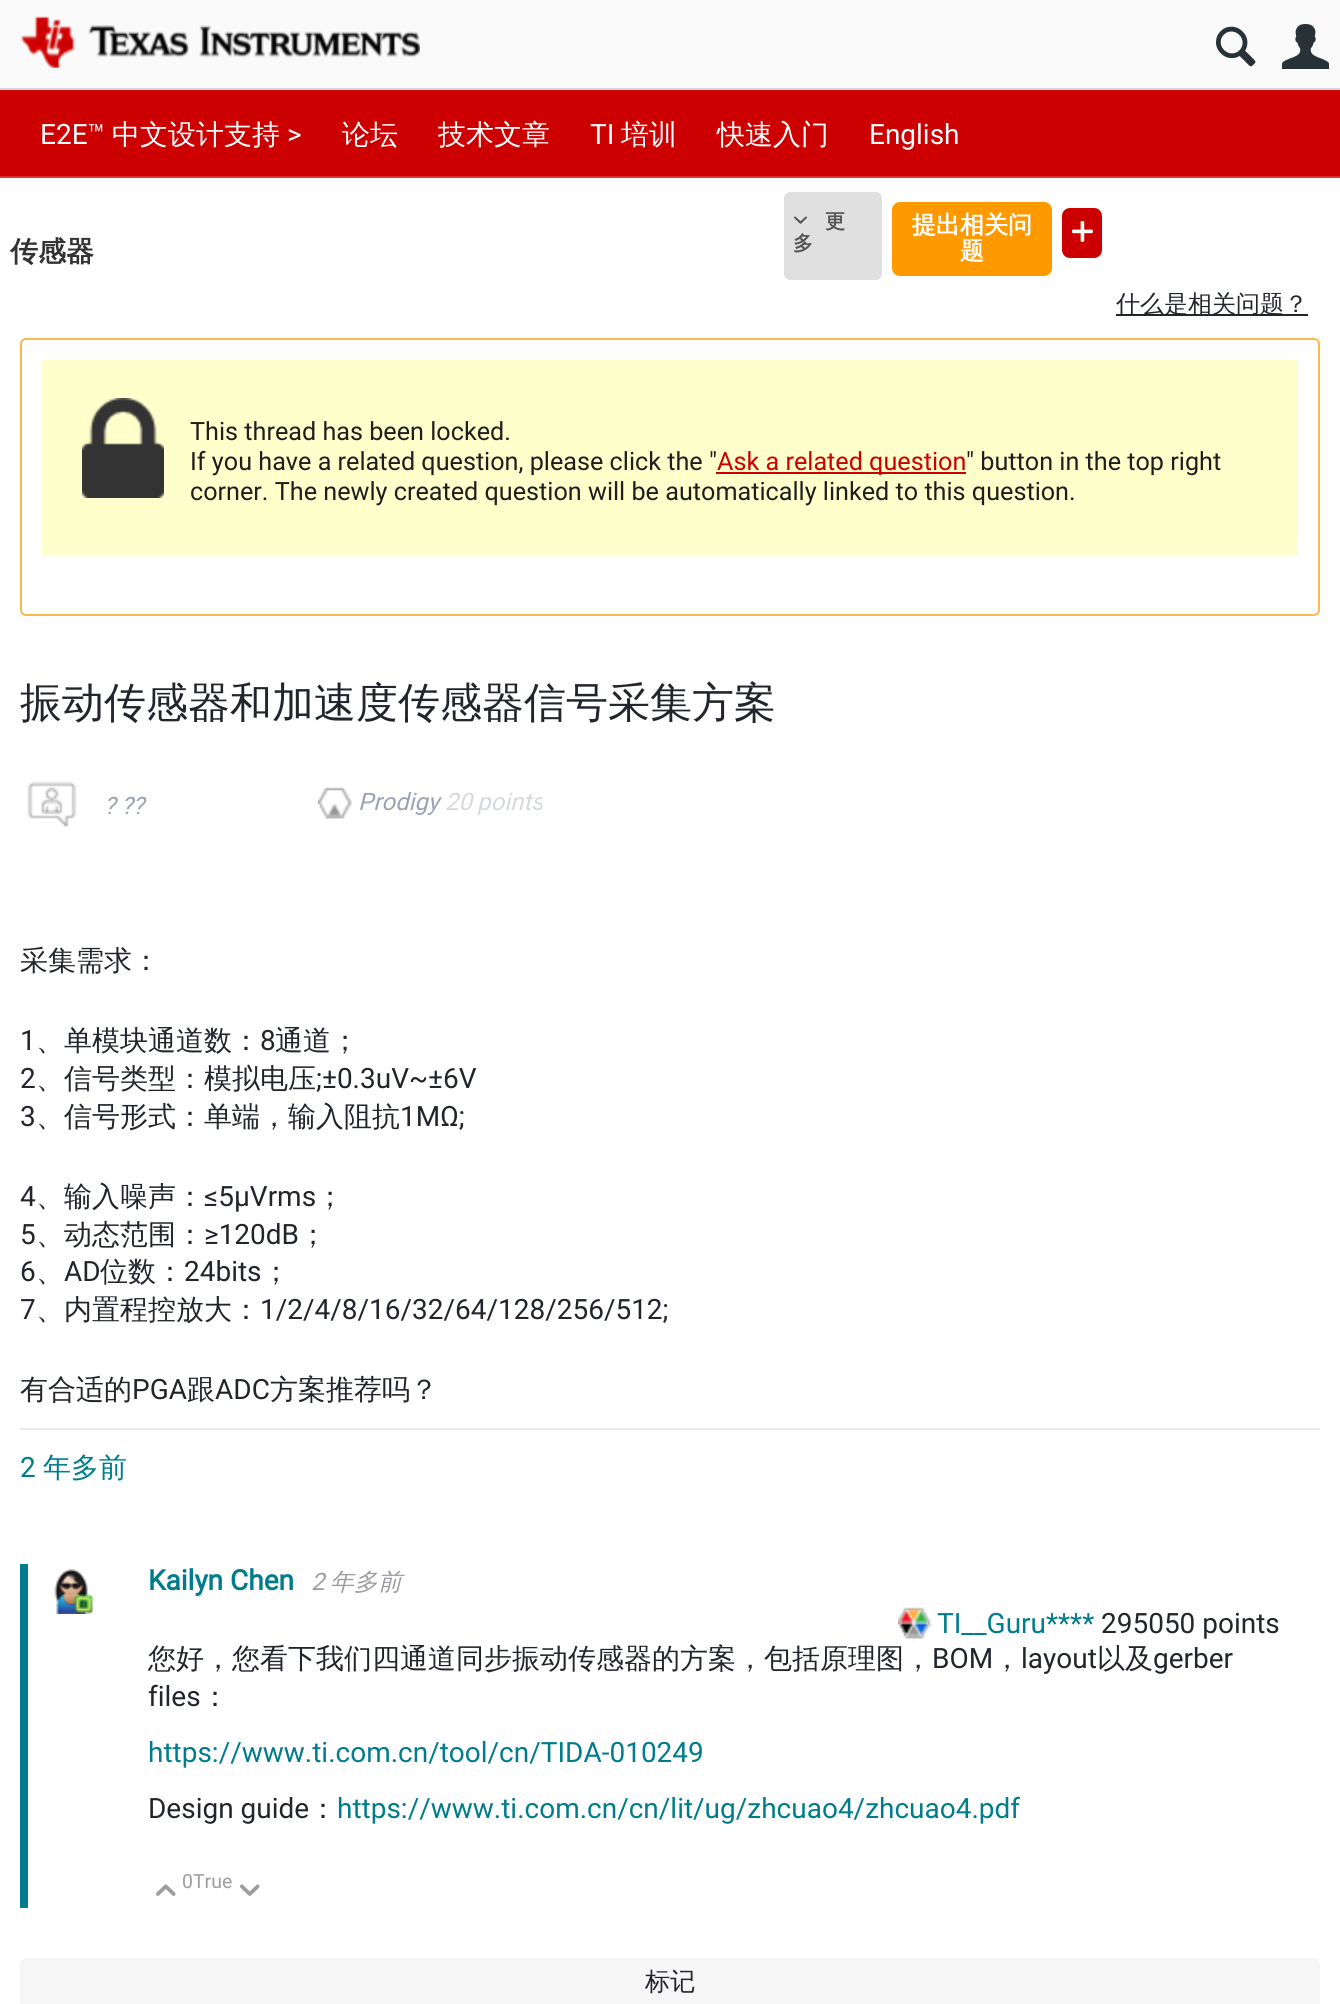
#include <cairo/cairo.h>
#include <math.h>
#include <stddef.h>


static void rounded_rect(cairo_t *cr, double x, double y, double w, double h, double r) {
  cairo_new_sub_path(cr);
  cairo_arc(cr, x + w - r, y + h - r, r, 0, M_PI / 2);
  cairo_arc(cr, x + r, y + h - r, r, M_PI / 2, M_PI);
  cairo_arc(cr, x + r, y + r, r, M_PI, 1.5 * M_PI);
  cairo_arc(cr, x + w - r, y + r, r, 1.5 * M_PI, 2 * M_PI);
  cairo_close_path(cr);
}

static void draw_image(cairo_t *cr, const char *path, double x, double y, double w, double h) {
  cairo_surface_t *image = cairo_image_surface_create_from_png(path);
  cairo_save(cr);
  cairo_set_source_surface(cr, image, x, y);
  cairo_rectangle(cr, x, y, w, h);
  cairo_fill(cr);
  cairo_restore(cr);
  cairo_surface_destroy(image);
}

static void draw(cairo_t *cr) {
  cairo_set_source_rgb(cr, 1, 1, 1);
  cairo_paint(cr);
  cairo_set_source_rgb(cr, 207 / 255.0, 216 / 255.0, 220 / 255.0);
  cairo_rectangle(cr, 0, 88, 1340, 2);
  cairo_fill(cr);
  cairo_set_source_rgb(cr, 250 / 255.0, 250 / 255.0, 250 / 255.0);
  cairo_rectangle(cr, 0, 0, 1340, 88);
  cairo_fill(cr);
  draw_image(cr, "images/1.png", 21, 16, 399, 52);
  draw_image(cr, "images/2.png", 1216, 26, 40, 41);
  draw_image(cr, "images/3.png", 1282, 24, 47, 45);
  cairo_set_source_rgb(cr, 204 / 255.0, 0, 0);
  cairo_rectangle(cr, 0, 90, 1340, 86);
  cairo_fill(cr);
  cairo_set_source_rgb(cr, 214 / 255.0, 51 / 255.0, 51 / 255.0);
  cairo_rectangle(cr, 0, 176, 1340, 2);
  cairo_fill(cr);
  cairo_set_source_rgb(cr, 224 / 255.0, 224 / 255.0, 224 / 255.0);
  rounded_rect(cr, 784, 192, 98, 88, 6);
  cairo_fill(cr);
  draw_image(cr, "images/4.png", 794, 216, 13, 8);
  cairo_set_source_rgb(cr, 204 / 255.0, 0, 0);
  rounded_rect(cr, 1062, 208, 40, 50, 8);
  cairo_fill(cr);
  draw_image(cr, "images/5.png", 1072, 221, 21, 21);
  cairo_set_source_rgb(cr, 1, 153 / 255.0, 0);
  rounded_rect(cr, 892, 202, 160, 74, 8);
  cairo_fill(cr);
  cairo_set_source_rgb(cr, 34 / 255.0, 37 / 255.0, 44 / 255.0);
  cairo_rectangle(cr, 1116, 314, 192, 2);
  cairo_fill(cr);
  rounded_rect(cr, 21, 339, 1298, 276, 5);
  cairo_set_source_rgb(cr, 250 / 255.0, 185 / 255.0, 77 / 255.0);
  cairo_stroke(cr);
  cairo_set_source_rgb(cr, 1, 1, 204 / 255.0);
  cairo_rectangle(cr, 42, 360, 1256, 196);
  cairo_fill(cr);
  draw_image(cr, "images/6.png", 82, 398, 82, 100);
  cairo_set_source_rgb(cr, 204 / 255.0, 0, 0);
  cairo_rectangle(cr, 716, 472, 250, 2);
  cairo_fill(cr);
  draw_image(cr, "images/7.png", 27, 781, 50, 46);
  draw_image(cr, "images/8.png", 318, 787, 34, 32);
  cairo_set_source_rgb(cr, 233 / 255.0, 234 / 255.0, 238 / 255.0);
  cairo_rectangle(cr, 20, 1428, 1300, 2);
  cairo_fill(cr);
  cairo_set_source_rgb(cr, 0, 124 / 255.0, 140 / 255.0);
  cairo_rectangle(cr, 20, 1564, 8, 344);
  cairo_fill(cr);
  draw_image(cr, "images/9.png", 54, 1569, 39, 45);
  draw_image(cr, "images/10.png", 898, 1607, 34, 32);
  draw_image(cr, "images/11.png", 156, 1884, 20, 12);
  draw_image(cr, "images/12.png", 240, 1884, 20, 12);
  cairo_set_source_rgb(cr, 246 / 255.0, 246 / 255.0, 247 / 255.0);
  rounded_rect(cr, 20, 1958, 1300, 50, 6);
  cairo_fill(cr);
  cairo_select_font_face(cr, "Roboto", CAIRO_FONT_SLANT_NORMAL, CAIRO_FONT_WEIGHT_NORMAL);
  cairo_set_font_size(cr, 28);
  cairo_set_source_rgb(cr, 1, 1, 1);
  cairo_move_to(cr, 40, 144);
  cairo_show_text(cr, "E2E™");
  cairo_select_font_face(cr, "WenQuanYi Zen Hei Medium", CAIRO_FONT_SLANT_NORMAL, CAIRO_FONT_WEIGHT_NORMAL);
  cairo_move_to(cr, 112, 144);
  cairo_show_text(cr, "中文设计支持");
  cairo_select_font_face(cr, "Roboto", CAIRO_FONT_SLANT_NORMAL, CAIRO_FONT_WEIGHT_NORMAL);
  cairo_move_to(cr, 287, 144);
  cairo_show_text(cr, ">");
  cairo_select_font_face(cr, "WenQuanYi Zen Hei Medium", CAIRO_FONT_SLANT_NORMAL, CAIRO_FONT_WEIGHT_NORMAL);
  cairo_move_to(cr, 342, 144);
  cairo_show_text(cr, "论坛");
  cairo_move_to(cr, 438, 144);
  cairo_show_text(cr, "技术文章");
  cairo_select_font_face(cr, "Roboto", CAIRO_FONT_SLANT_NORMAL, CAIRO_FONT_WEIGHT_NORMAL);
  cairo_move_to(cr, 590, 144);
  cairo_show_text(cr, "TI");
  cairo_select_font_face(cr, "WenQuanYi Zen Hei Medium", CAIRO_FONT_SLANT_NORMAL, CAIRO_FONT_WEIGHT_NORMAL);
  cairo_move_to(cr, 621, 144);
  cairo_show_text(cr, "培训");
  cairo_move_to(cr, 717, 144);
  cairo_show_text(cr, "快速入门");
  cairo_select_font_face(cr, "Roboto", CAIRO_FONT_SLANT_NORMAL, CAIRO_FONT_WEIGHT_NORMAL);
  cairo_move_to(cr, 869, 144);
  cairo_show_text(cr, "English");
  cairo_select_font_face(cr, "WenQuanYi Zen Hei", CAIRO_FONT_SLANT_NORMAL, CAIRO_FONT_WEIGHT_BOLD);
  cairo_set_source_rgb(cr, 51 / 255.0, 51 / 255.0, 51 / 255.0);
  cairo_move_to(cr, 10, 261);
  cairo_show_text(cr, "传感器");
  cairo_set_font_size(cr, 20);
  cairo_set_source_rgb(cr, 85 / 255.0, 85 / 255.0, 85 / 255.0);
  cairo_move_to(cr, 825, 228);
  cairo_show_text(cr, "更");
  cairo_move_to(cr, 793, 250);
  cairo_show_text(cr, "多");
  cairo_set_font_size(cr, 24);
  cairo_set_source_rgb(cr, 1, 1, 1);
  cairo_move_to(cr, 912, 233);
  cairo_show_text(cr, "提出相关问");
  cairo_move_to(cr, 960, 259);
  cairo_show_text(cr, "题");
  cairo_select_font_face(cr, "WenQuanYi Zen Hei Medium", CAIRO_FONT_SLANT_NORMAL, CAIRO_FONT_WEIGHT_NORMAL);
  cairo_set_source_rgb(cr, 34 / 255.0, 37 / 255.0, 44 / 255.0);
  cairo_move_to(cr, 1116, 312);
  cairo_show_text(cr, "什么是相关问题？");
  cairo_select_font_face(cr, "Roboto", CAIRO_FONT_SLANT_NORMAL, CAIRO_FONT_WEIGHT_NORMAL);
  cairo_set_font_size(cr, 25.2);
  cairo_set_source_rgb(cr, 30 / 255.0, 30 / 255.0, 30 / 255.0);
  cairo_move_to(cr, 190, 440);
  cairo_show_text(cr, "This thread has been locked.");
  cairo_move_to(cr, 190, 470);
  cairo_show_text(cr, "If you have a related question, please click the \"");
  cairo_set_source_rgb(cr, 204 / 255.0, 0, 0);
  cairo_move_to(cr, 717, 470);
  cairo_show_text(cr, "Ask a related question");
  cairo_set_source_rgb(cr, 30 / 255.0, 30 / 255.0, 30 / 255.0);
  cairo_move_to(cr, 966, 470);
  cairo_show_text(cr, "\" button in the top right");
  cairo_move_to(cr, 190, 500);
  cairo_show_text(cr, "corner. The newly created question will be automatically linked to this question.");
  cairo_select_font_face(cr, "WenQuanYi Zen Hei Medium", CAIRO_FONT_SLANT_NORMAL, CAIRO_FONT_WEIGHT_NORMAL);
  cairo_set_font_size(cr, 42);
  cairo_set_source_rgb(cr, 34 / 255.0, 37 / 255.0, 44 / 255.0);
  cairo_move_to(cr, 20, 717);
  cairo_show_text(cr, "振动传感器和加速度传感器信号采集方案");
  cairo_select_font_face(cr, "Roboto", CAIRO_FONT_SLANT_ITALIC, CAIRO_FONT_WEIGHT_NORMAL);
  cairo_set_font_size(cr, 24);
  cairo_set_source_rgb(cr, 155 / 255.0, 162 / 255.0, 178 / 255.0);
  cairo_move_to(cr, 104, 814);
  cairo_show_text(cr, "? ?\077");
  cairo_move_to(cr, 358, 810);
  cairo_show_text(cr, "Prodigy");
  cairo_set_source_rgb(cr, 213 / 255.0, 216 / 255.0, 222 / 255.0);
  cairo_move_to(cr, 445, 810);
  cairo_show_text(cr, "20");
  cairo_save(cr);
  cairo_rectangle(cr, 20, 772, 522, 64);
  cairo_clip(cr);
  cairo_move_to(cr, 477, 810);
  cairo_show_text(cr, "points");
  cairo_restore(cr);
  cairo_select_font_face(cr, "WenQuanYi Zen Hei Medium", CAIRO_FONT_SLANT_NORMAL, CAIRO_FONT_WEIGHT_NORMAL);
  cairo_set_font_size(cr, 28);
  cairo_set_source_rgb(cr, 34 / 255.0, 37 / 255.0, 44 / 255.0);
  cairo_move_to(cr, 20, 970);
  cairo_show_text(cr, "采集需求：");
  cairo_select_font_face(cr, "Roboto", CAIRO_FONT_SLANT_NORMAL, CAIRO_FONT_WEIGHT_NORMAL);
  cairo_move_to(cr, 20, 1050);
  cairo_show_text(cr, "1");
  cairo_select_font_face(cr, "WenQuanYi Zen Hei Medium", CAIRO_FONT_SLANT_NORMAL, CAIRO_FONT_WEIGHT_NORMAL);
  cairo_move_to(cr, 36, 1050);
  cairo_show_text(cr, "、单模块通道数：");
  cairo_select_font_face(cr, "Roboto", CAIRO_FONT_SLANT_NORMAL, CAIRO_FONT_WEIGHT_NORMAL);
  cairo_move_to(cr, 260, 1050);
  cairo_show_text(cr, "8");
  cairo_select_font_face(cr, "WenQuanYi Zen Hei Medium", CAIRO_FONT_SLANT_NORMAL, CAIRO_FONT_WEIGHT_NORMAL);
  cairo_move_to(cr, 275, 1050);
  cairo_show_text(cr, "通道；");
  cairo_select_font_face(cr, "Roboto", CAIRO_FONT_SLANT_NORMAL, CAIRO_FONT_WEIGHT_NORMAL);
  cairo_move_to(cr, 20, 1088);
  cairo_show_text(cr, "2");
  cairo_select_font_face(cr, "WenQuanYi Zen Hei Medium", CAIRO_FONT_SLANT_NORMAL, CAIRO_FONT_WEIGHT_NORMAL);
  cairo_move_to(cr, 36, 1088);
  cairo_show_text(cr, "、信号类型：模拟电压");
  cairo_select_font_face(cr, "Roboto", CAIRO_FONT_SLANT_NORMAL, CAIRO_FONT_WEIGHT_NORMAL);
  cairo_move_to(cr, 316, 1088);
  cairo_show_text(cr, ";±0.3uV~±6V");
  cairo_move_to(cr, 20, 1126);
  cairo_show_text(cr, "3");
  cairo_select_font_face(cr, "WenQuanYi Zen Hei Medium", CAIRO_FONT_SLANT_NORMAL, CAIRO_FONT_WEIGHT_NORMAL);
  cairo_move_to(cr, 36, 1126);
  cairo_show_text(cr, "、信号形式：单端，输入阻抗");
  cairo_select_font_face(cr, "Roboto", CAIRO_FONT_SLANT_NORMAL, CAIRO_FONT_WEIGHT_NORMAL);
  cairo_move_to(cr, 400, 1126);
  cairo_show_text(cr, "1MΩ;");
  cairo_move_to(cr, 20, 1206);
  cairo_show_text(cr, "4");
  cairo_select_font_face(cr, "WenQuanYi Zen Hei Medium", CAIRO_FONT_SLANT_NORMAL, CAIRO_FONT_WEIGHT_NORMAL);
  cairo_move_to(cr, 36, 1206);
  cairo_show_text(cr, "、输入噪声：");
  cairo_select_font_face(cr, "Roboto", CAIRO_FONT_SLANT_NORMAL, CAIRO_FONT_WEIGHT_NORMAL);
  cairo_move_to(cr, 204, 1206);
  cairo_show_text(cr, "≤5μVrms");
  cairo_select_font_face(cr, "WenQuanYi Zen Hei Medium", CAIRO_FONT_SLANT_NORMAL, CAIRO_FONT_WEIGHT_NORMAL);
  cairo_move_to(cr, 316, 1206);
  cairo_show_text(cr, "；");
  cairo_select_font_face(cr, "Roboto", CAIRO_FONT_SLANT_NORMAL, CAIRO_FONT_WEIGHT_NORMAL);
  cairo_move_to(cr, 20, 1244);
  cairo_show_text(cr, "5");
  cairo_select_font_face(cr, "WenQuanYi Zen Hei Medium", CAIRO_FONT_SLANT_NORMAL, CAIRO_FONT_WEIGHT_NORMAL);
  cairo_move_to(cr, 36, 1244);
  cairo_show_text(cr, "、动态范围：");
  cairo_select_font_face(cr, "Roboto", CAIRO_FONT_SLANT_NORMAL, CAIRO_FONT_WEIGHT_NORMAL);
  cairo_move_to(cr, 204, 1244);
  cairo_show_text(cr, "≥120dB");
  cairo_select_font_face(cr, "WenQuanYi Zen Hei Medium", CAIRO_FONT_SLANT_NORMAL, CAIRO_FONT_WEIGHT_NORMAL);
  cairo_move_to(cr, 299, 1244);
  cairo_show_text(cr, "；");
  cairo_select_font_face(cr, "Roboto", CAIRO_FONT_SLANT_NORMAL, CAIRO_FONT_WEIGHT_NORMAL);
  cairo_move_to(cr, 20, 1281);
  cairo_show_text(cr, "6");
  cairo_select_font_face(cr, "WenQuanYi Zen Hei Medium", CAIRO_FONT_SLANT_NORMAL, CAIRO_FONT_WEIGHT_NORMAL);
  cairo_move_to(cr, 36, 1281);
  cairo_show_text(cr, "、");
  cairo_select_font_face(cr, "Roboto", CAIRO_FONT_SLANT_NORMAL, CAIRO_FONT_WEIGHT_NORMAL);
  cairo_move_to(cr, 64, 1281);
  cairo_show_text(cr, "AD");
  cairo_select_font_face(cr, "WenQuanYi Zen Hei Medium", CAIRO_FONT_SLANT_NORMAL, CAIRO_FONT_WEIGHT_NORMAL);
  cairo_move_to(cr, 100, 1281);
  cairo_show_text(cr, "位数：");
  cairo_select_font_face(cr, "Roboto", CAIRO_FONT_SLANT_NORMAL, CAIRO_FONT_WEIGHT_NORMAL);
  cairo_move_to(cr, 184, 1281);
  cairo_show_text(cr, "24bits");
  cairo_select_font_face(cr, "WenQuanYi Zen Hei Medium", CAIRO_FONT_SLANT_NORMAL, CAIRO_FONT_WEIGHT_NORMAL);
  cairo_move_to(cr, 262, 1281);
  cairo_show_text(cr, "；");
  cairo_select_font_face(cr, "Roboto", CAIRO_FONT_SLANT_NORMAL, CAIRO_FONT_WEIGHT_NORMAL);
  cairo_move_to(cr, 20, 1319);
  cairo_show_text(cr, "7");
  cairo_select_font_face(cr, "WenQuanYi Zen Hei Medium", CAIRO_FONT_SLANT_NORMAL, CAIRO_FONT_WEIGHT_NORMAL);
  cairo_move_to(cr, 36, 1319);
  cairo_show_text(cr, "、内置程控放大：");
  cairo_select_font_face(cr, "Roboto", CAIRO_FONT_SLANT_NORMAL, CAIRO_FONT_WEIGHT_NORMAL);
  cairo_move_to(cr, 260, 1319);
  cairo_show_text(cr, "1/2/4/8/16/32/64/128/256/512;");
  cairo_select_font_face(cr, "WenQuanYi Zen Hei Medium", CAIRO_FONT_SLANT_NORMAL, CAIRO_FONT_WEIGHT_NORMAL);
  cairo_move_to(cr, 20, 1399);
  cairo_show_text(cr, "有合适的");
  cairo_select_font_face(cr, "Roboto", CAIRO_FONT_SLANT_NORMAL, CAIRO_FONT_WEIGHT_NORMAL);
  cairo_move_to(cr, 132, 1399);
  cairo_show_text(cr, "PGA");
  cairo_select_font_face(cr, "WenQuanYi Zen Hei Medium", CAIRO_FONT_SLANT_NORMAL, CAIRO_FONT_WEIGHT_NORMAL);
  cairo_move_to(cr, 187, 1399);
  cairo_show_text(cr, "跟");
  cairo_select_font_face(cr, "Roboto", CAIRO_FONT_SLANT_NORMAL, CAIRO_FONT_WEIGHT_NORMAL);
  cairo_move_to(cr, 215, 1399);
  cairo_show_text(cr, "ADC");
  cairo_select_font_face(cr, "WenQuanYi Zen Hei Medium", CAIRO_FONT_SLANT_NORMAL, CAIRO_FONT_WEIGHT_NORMAL);
  cairo_move_to(cr, 270, 1399);
  cairo_show_text(cr, "方案推荐吗？");
  cairo_select_font_face(cr, "Roboto", CAIRO_FONT_SLANT_NORMAL, CAIRO_FONT_WEIGHT_NORMAL);
  cairo_set_source_rgb(cr, 0, 124 / 255.0, 140 / 255.0);
  cairo_move_to(cr, 20, 1477);
  cairo_show_text(cr, "2");
  cairo_select_font_face(cr, "WenQuanYi Zen Hei Medium", CAIRO_FONT_SLANT_NORMAL, CAIRO_FONT_WEIGHT_NORMAL);
  cairo_move_to(cr, 43, 1477);
  cairo_show_text(cr, "年多前");
  cairo_select_font_face(cr, "Roboto", CAIRO_FONT_SLANT_NORMAL, CAIRO_FONT_WEIGHT_BOLD);
  cairo_move_to(cr, 148, 1590);
  cairo_show_text(cr, "Kailyn Chen");
  cairo_select_font_face(cr, "Roboto", CAIRO_FONT_SLANT_ITALIC, CAIRO_FONT_WEIGHT_NORMAL);
  cairo_set_font_size(cr, 24);
  cairo_set_source_rgb(cr, 156 / 255.0, 157 / 255.0, 160 / 255.0);
  cairo_move_to(cr, 311, 1590);
  cairo_show_text(cr, "2");
  cairo_select_font_face(cr, "WenQuanYi Zen Hei Medium", CAIRO_FONT_SLANT_ITALIC, CAIRO_FONT_WEIGHT_NORMAL);
  cairo_move_to(cr, 330, 1590);
  cairo_show_text(cr, "年多前");
  cairo_select_font_face(cr, "Roboto", CAIRO_FONT_SLANT_NORMAL, CAIRO_FONT_WEIGHT_NORMAL);
  cairo_set_font_size(cr, 28);
  cairo_set_source_rgb(cr, 0, 124 / 255.0, 140 / 255.0);
  cairo_move_to(cr, 937, 1633);
  cairo_show_text(cr, "TI__Guru****");
  cairo_set_source_rgb(cr, 34 / 255.0, 37 / 255.0, 44 / 255.0);
  cairo_move_to(cr, 1101, 1633);
  cairo_show_text(cr, "295050 points");
  cairo_select_font_face(cr, "WenQuanYi Zen Hei Medium", CAIRO_FONT_SLANT_NORMAL, CAIRO_FONT_WEIGHT_NORMAL);
  cairo_move_to(cr, 148, 1668);
  cairo_show_text(cr, "您好，您看下我们四通道同步振动传感器的方案，包括原理图，");
  cairo_select_font_face(cr, "Roboto", CAIRO_FONT_SLANT_NORMAL, CAIRO_FONT_WEIGHT_NORMAL);
  cairo_move_to(cr, 932, 1668);
  cairo_show_text(cr, "BOM");
  cairo_select_font_face(cr, "WenQuanYi Zen Hei Medium", CAIRO_FONT_SLANT_NORMAL, CAIRO_FONT_WEIGHT_NORMAL);
  cairo_move_to(cr, 993, 1668);
  cairo_show_text(cr, "，");
  cairo_select_font_face(cr, "Roboto", CAIRO_FONT_SLANT_NORMAL, CAIRO_FONT_WEIGHT_NORMAL);
  cairo_move_to(cr, 1021, 1668);
  cairo_show_text(cr, "layout");
  cairo_select_font_face(cr, "WenQuanYi Zen Hei Medium", CAIRO_FONT_SLANT_NORMAL, CAIRO_FONT_WEIGHT_NORMAL);
  cairo_move_to(cr, 1097, 1668);
  cairo_show_text(cr, "以及");
  cairo_select_font_face(cr, "Roboto", CAIRO_FONT_SLANT_NORMAL, CAIRO_FONT_WEIGHT_NORMAL);
  cairo_move_to(cr, 1153, 1668);
  cairo_show_text(cr, "gerber");
  cairo_move_to(cr, 148, 1706);
  cairo_show_text(cr, "files");
  cairo_select_font_face(cr, "WenQuanYi Zen Hei Medium", CAIRO_FONT_SLANT_NORMAL, CAIRO_FONT_WEIGHT_NORMAL);
  cairo_move_to(cr, 201, 1706);
  cairo_show_text(cr, "：");
  cairo_select_font_face(cr, "Roboto", CAIRO_FONT_SLANT_NORMAL, CAIRO_FONT_WEIGHT_NORMAL);
  cairo_set_source_rgb(cr, 0, 124 / 255.0, 140 / 255.0);
  cairo_move_to(cr, 148, 1762);
  cairo_show_text(cr, "https://www.ti.com.cn/tool/cn/TIDA-010249");
  cairo_set_source_rgb(cr, 34 / 255.0, 37 / 255.0, 44 / 255.0);
  cairo_move_to(cr, 148, 1818);
  cairo_show_text(cr, "Design guide");
  cairo_select_font_face(cr, "WenQuanYi Zen Hei Medium", CAIRO_FONT_SLANT_NORMAL, CAIRO_FONT_WEIGHT_NORMAL);
  cairo_move_to(cr, 309, 1818);
  cairo_show_text(cr, "：");
  cairo_select_font_face(cr, "Roboto", CAIRO_FONT_SLANT_NORMAL, CAIRO_FONT_WEIGHT_NORMAL);
  cairo_set_source_rgb(cr, 0, 124 / 255.0, 140 / 255.0);
  cairo_move_to(cr, 337, 1818);
  cairo_show_text(cr, "https://www.ti.com.cn/cn/lit/ug/zhcuao4/zhcuao4.pdf");
  cairo_set_font_size(cr, 19.5);
  cairo_set_source_rgb(cr, 156 / 255.0, 157 / 255.0, 160 / 255.0);
  cairo_move_to(cr, 182, 1888);
  cairo_show_text(cr, "0True");
  cairo_select_font_face(cr, "WenQuanYi Zen Hei Medium", CAIRO_FONT_SLANT_NORMAL, CAIRO_FONT_WEIGHT_NORMAL);
  cairo_set_font_size(cr, 25.2);
  cairo_set_source_rgb(cr, 34 / 255.0, 37 / 255.0, 44 / 255.0);
  cairo_move_to(cr, 645, 1990);
  cairo_show_text(cr, "标记");
}

int main(void) {
  cairo_surface_t *surface = cairo_image_surface_create(CAIRO_FORMAT_RGB24, 1340, 2004);
  cairo_t *cr = cairo_create(surface);
  cairo_font_options_t *options = cairo_font_options_create();
  cairo_font_options_set_hint_metrics(options, CAIRO_HINT_METRICS_OFF);
  cairo_font_options_set_hint_style(options, CAIRO_HINT_STYLE_NONE);
  cairo_set_font_options(cr, options);
  cairo_set_miter_limit(cr, 4);
  draw(cr);
  cairo_surface_write_to_png(surface, "out.png");
  cairo_font_options_destroy(options);
  cairo_destroy(cr);
  cairo_surface_destroy(surface);
  return 0;
}
